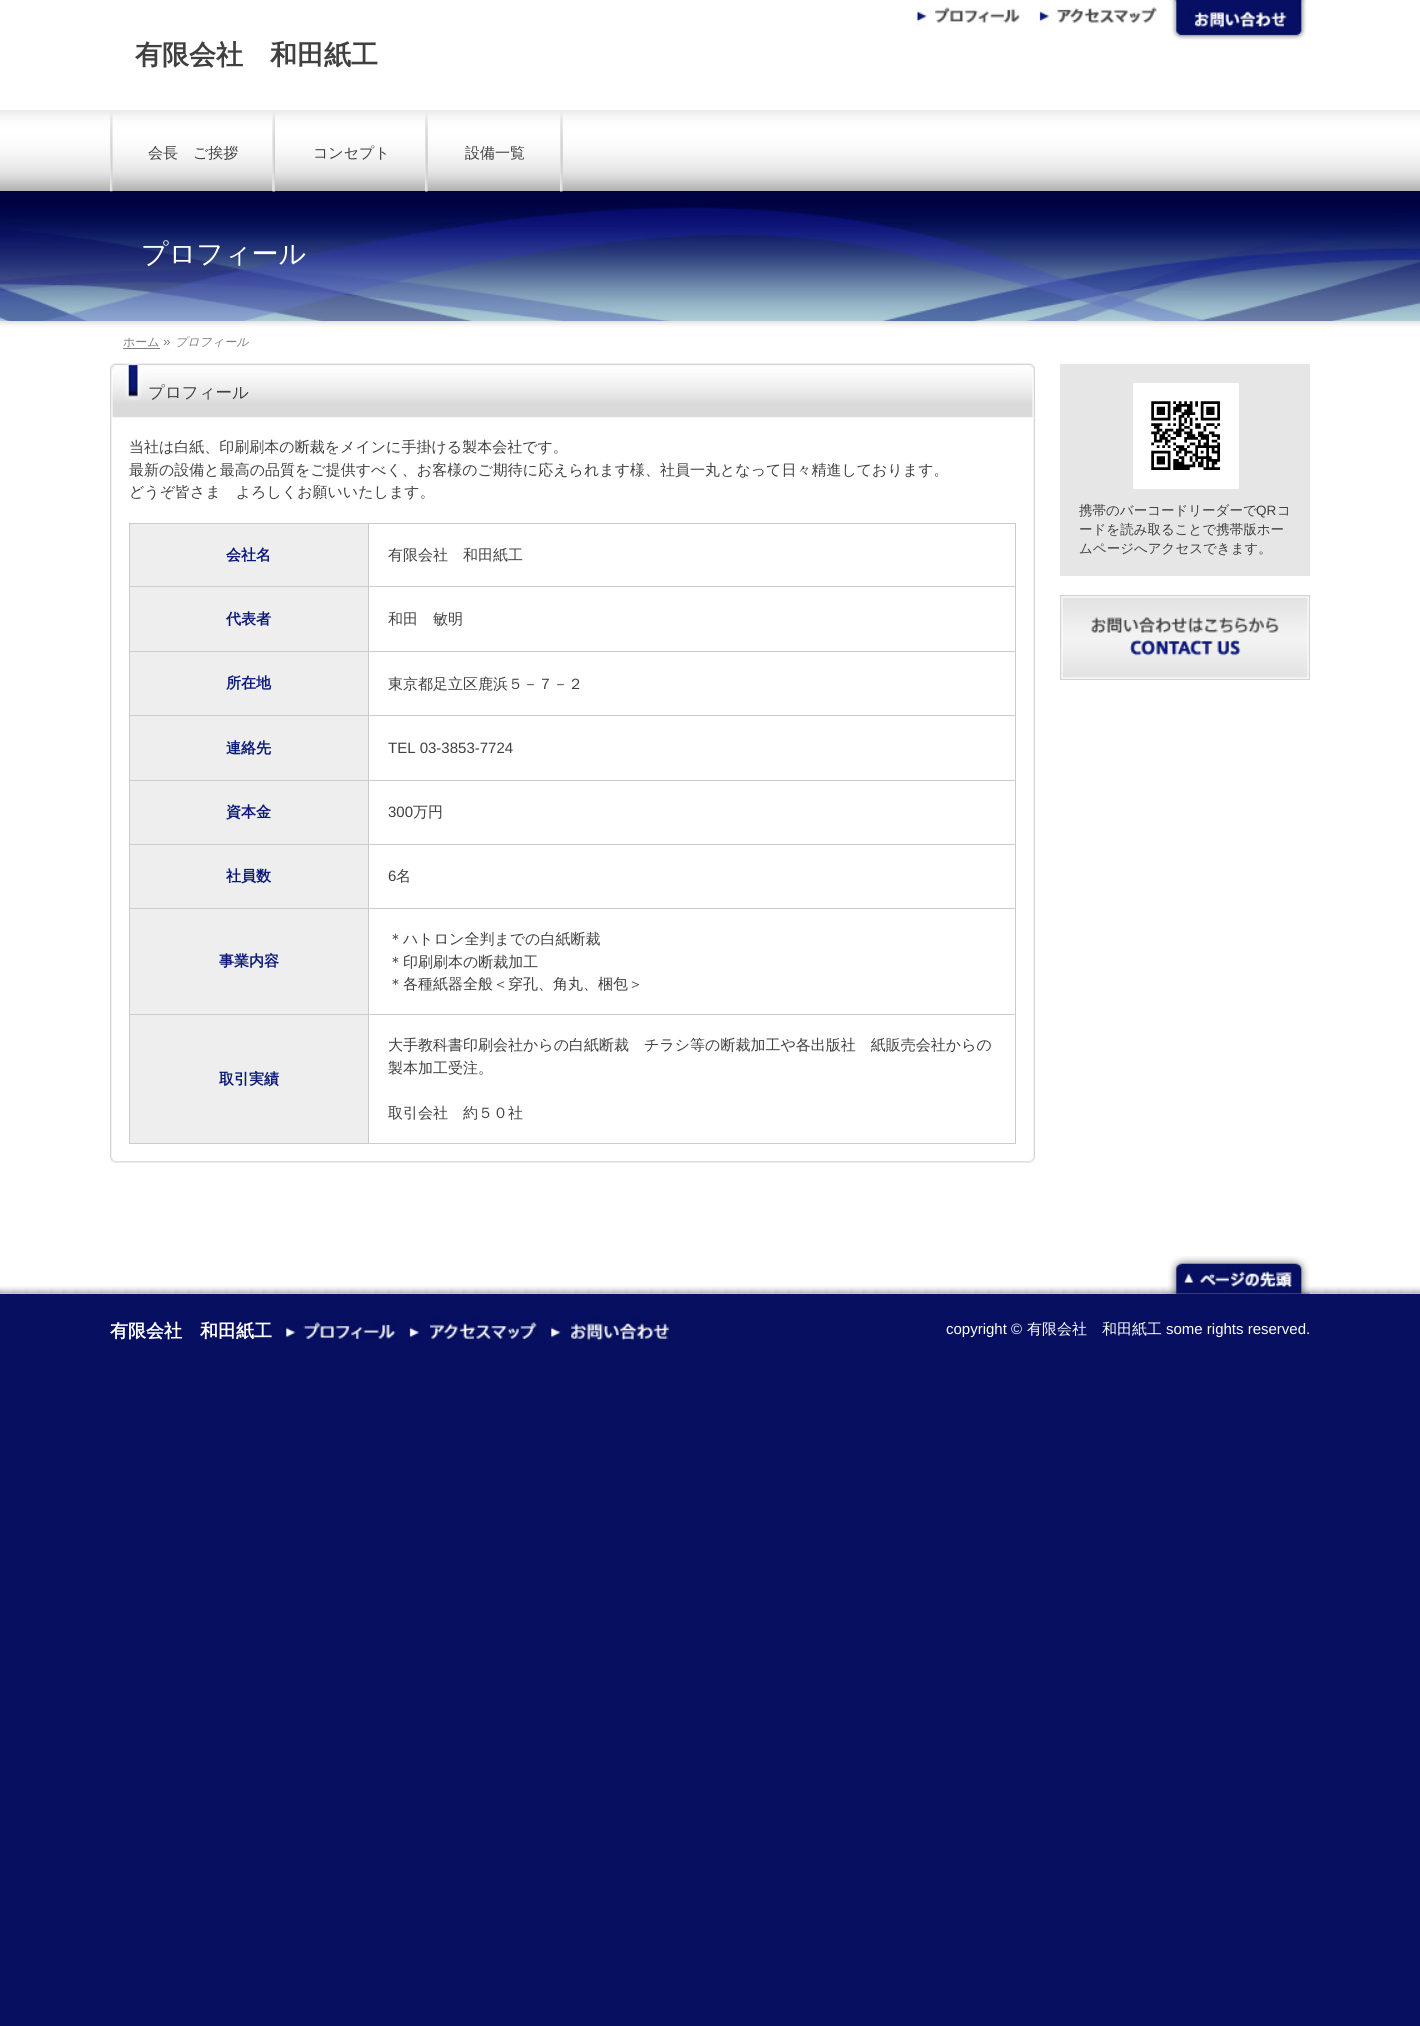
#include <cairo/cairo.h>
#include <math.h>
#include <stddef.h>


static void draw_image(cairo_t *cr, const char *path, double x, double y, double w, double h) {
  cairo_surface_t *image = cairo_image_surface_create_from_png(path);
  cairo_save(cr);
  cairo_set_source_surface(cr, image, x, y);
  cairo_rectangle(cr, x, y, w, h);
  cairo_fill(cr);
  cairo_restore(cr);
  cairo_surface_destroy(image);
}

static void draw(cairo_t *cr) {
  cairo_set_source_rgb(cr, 6 / 255.0, 15 / 255.0, 96 / 255.0);
  cairo_paint(cr);
  cairo_set_source_rgb(cr, 1, 1, 1);
  cairo_rectangle(cr, 0, 0, 1420, 1294);
  cairo_fill(cr);
  draw_image(cr, "images/1.png", 916, 6, 104, 19);
  draw_image(cr, "images/2.png", 1038, 6, 119, 19);
  draw_image(cr, "images/3.png", 1169, 0, 138, 40);
  draw_image(cr, "images/4.png", 0, 110, 1420, 81);
  cairo_set_source_rgb(cr, 1 / 255.0, 2 / 255.0, 65 / 255.0);
  cairo_rectangle(cr, 0, 191, 1420, 13);
  cairo_fill(cr);
  draw_image(cr, "images/5.png", 110, 113, 3, 79);
  draw_image(cr, "images/6.png", 272, 113, 3, 79);
  draw_image(cr, "images/7.png", 272, 120, 3, 72);
  draw_image(cr, "images/5.png", 425, 113, 3, 79);
  draw_image(cr, "images/8.png", 425, 117, 3, 75);
  draw_image(cr, "images/5.png", 560, 113, 3, 79);
  draw_image(cr, "images/8.png", 560, 117, 3, 75);
  draw_image(cr, "images/9.png", 0, 204, 1420, 118);
  draw_image(cr, "images/10.png", 0, 321, 1420, 6);
  cairo_set_source_rgb(cr, 127 / 255.0, 127 / 255.0, 127 / 255.0);
  cairo_rectangle(cr, 123, 348, 37, 1);
  cairo_fill(cr);
  draw_image(cr, "images/11.png", 110, 363, 925, 55);
  draw_image(cr, "images/12.png", 110, 363, 925, 41);
  draw_image(cr, "images/13.png", 110, 417, 925, 746);
  draw_image(cr, "images/14.png", 110, 1157, 925, 6);
  cairo_set_source_rgb(cr, 204 / 255.0, 204 / 255.0, 204 / 255.0);
  cairo_rectangle(cr, 129, 523, 887, 1);
  cairo_fill(cr);
  cairo_rectangle(cr, 1015, 523, 1, 621);
  cairo_fill(cr);
  cairo_rectangle(cr, 129, 1143, 887, 1);
  cairo_fill(cr);
  cairo_rectangle(cr, 129, 523, 1, 621);
  cairo_fill(cr);
  cairo_set_source_rgb(cr, 238 / 255.0, 238 / 255.0, 238 / 255.0);
  cairo_rectangle(cr, 130, 524, 238, 127);
  cairo_fill(cr);
  cairo_set_source_rgb(cr, 204 / 255.0, 204 / 255.0, 204 / 255.0);
  cairo_rectangle(cr, 368, 586, 648, 1);
  cairo_fill(cr);
  cairo_rectangle(cr, 368, 651, 648, 1);
  cairo_fill(cr);
  cairo_rectangle(cr, 368, 715, 648, 1);
  cairo_fill(cr);
  cairo_rectangle(cr, 368, 780, 648, 1);
  cairo_fill(cr);
  cairo_rectangle(cr, 368, 844, 648, 1);
  cairo_fill(cr);
  cairo_rectangle(cr, 368, 908, 648, 1);
  cairo_fill(cr);
  cairo_rectangle(cr, 368, 1014, 648, 1);
  cairo_fill(cr);
  cairo_rectangle(cr, 368, 1014, 1, 130);
  cairo_fill(cr);
  cairo_rectangle(cr, 129, 1014, 240, 1);
  cairo_fill(cr);
  cairo_rectangle(cr, 368, 908, 1, 107);
  cairo_fill(cr);
  cairo_rectangle(cr, 129, 908, 240, 1);
  cairo_fill(cr);
  cairo_rectangle(cr, 368, 844, 1, 65);
  cairo_fill(cr);
  cairo_rectangle(cr, 129, 844, 240, 1);
  cairo_fill(cr);
  cairo_rectangle(cr, 368, 780, 1, 65);
  cairo_fill(cr);
  cairo_rectangle(cr, 129, 780, 240, 1);
  cairo_fill(cr);
  cairo_rectangle(cr, 368, 715, 1, 66);
  cairo_fill(cr);
  cairo_rectangle(cr, 129, 715, 240, 1);
  cairo_fill(cr);
  cairo_rectangle(cr, 368, 651, 1, 65);
  cairo_fill(cr);
  cairo_rectangle(cr, 129, 651, 240, 1);
  cairo_fill(cr);
  cairo_rectangle(cr, 368, 586, 1, 67);
  cairo_fill(cr);
  cairo_rectangle(cr, 129, 586, 240, 1);
  cairo_fill(cr);
  cairo_rectangle(cr, 368, 523, 1, 65);
  cairo_fill(cr);
  cairo_set_source_rgb(cr, 238 / 255.0, 238 / 255.0, 238 / 255.0);
  cairo_rectangle(cr, 130, 652, 238, 63);
  cairo_fill(cr);
  cairo_rectangle(cr, 130, 716, 238, 64);
  cairo_fill(cr);
  cairo_rectangle(cr, 130, 781, 238, 63);
  cairo_fill(cr);
  cairo_rectangle(cr, 130, 845, 238, 63);
  cairo_fill(cr);
  cairo_rectangle(cr, 130, 909, 238, 105);
  cairo_fill(cr);
  cairo_rectangle(cr, 130, 1015, 238, 128);
  cairo_fill(cr);
  cairo_set_source_rgb(cr, 230 / 255.0, 230 / 255.0, 230 / 255.0);
  cairo_rectangle(cr, 1060, 364, 250, 212);
  cairo_fill(cr);
  cairo_set_source_rgb(cr, 1, 1, 1);
  cairo_rectangle(cr, 1133, 383, 106, 106);
  cairo_fill(cr);
  draw_image(cr, "images/15.png", 1151, 401, 69, 69);
  draw_image(cr, "images/16.png", 1060, 595, 250, 85);
  draw_image(cr, "images/17.png", 0, 1286, 1420, 8);
  draw_image(cr, "images/18.png", 1166, 1256, 144, 38);
  draw_image(cr, "images/19.png", 285, 1319, 111, 20);
  draw_image(cr, "images/20.png", 409, 1319, 129, 20);
  draw_image(cr, "images/21.png", 550, 1319, 120, 26);
  cairo_select_font_face(cr, "WenQuanYi Zen Hei", CAIRO_FONT_SLANT_NORMAL, CAIRO_FONT_WEIGHT_BOLD);
  cairo_set_font_size(cr, 27);
  cairo_set_source_rgb(cr, 64 / 255.0, 64 / 255.0, 64 / 255.0);
  cairo_move_to(cr, 135, 64);
  cairo_show_text(cr, "有限会社　和田紙工");
  cairo_select_font_face(cr, "WenQuanYi Zen Hei Medium", CAIRO_FONT_SLANT_NORMAL, CAIRO_FONT_WEIGHT_NORMAL);
  cairo_set_font_size(cr, 15);
  cairo_move_to(cr, 148, 158);
  cairo_show_text(cr, "会長　ご挨拶");
  cairo_move_to(cr, 313, 158);
  cairo_show_text(cr, "コンセプト");
  cairo_move_to(cr, 465, 158);
  cairo_show_text(cr, "設備一覧");
  cairo_set_font_size(cr, 27);
  cairo_set_source_rgb(cr, 1, 1, 1);
  cairo_move_to(cr, 141, 263);
  cairo_show_text(cr, "プロフィール");
  cairo_set_font_size(cr, 12);
  cairo_set_source_rgb(cr, 127 / 255.0, 127 / 255.0, 127 / 255.0);
  cairo_move_to(cr, 123, 346);
  cairo_show_text(cr, "ホーム");
  cairo_select_font_face(cr, "Liberation Sans", CAIRO_FONT_SLANT_NORMAL, CAIRO_FONT_WEIGHT_NORMAL);
  cairo_set_font_size(cr, 13.5);
  cairo_move_to(cr, 163, 346);
  cairo_show_text(cr, "»");
  cairo_select_font_face(cr, "WenQuanYi Zen Hei Medium", CAIRO_FONT_SLANT_ITALIC, CAIRO_FONT_WEIGHT_NORMAL);
  cairo_set_font_size(cr, 12);
  cairo_move_to(cr, 175, 346);
  cairo_show_text(cr, "プロフィール");
  cairo_select_font_face(cr, "WenQuanYi Zen Hei Medium", CAIRO_FONT_SLANT_NORMAL, CAIRO_FONT_WEIGHT_NORMAL);
  cairo_set_font_size(cr, 16.5);
  cairo_set_source_rgb(cr, 64 / 255.0, 64 / 255.0, 64 / 255.0);
  cairo_move_to(cr, 148, 398);
  cairo_show_text(cr, "プロフィール");
  cairo_set_font_size(cr, 15);
  cairo_move_to(cr, 129, 452);
  cairo_show_text(cr, "当社は白紙、印刷刷本の断裁をメインに手掛ける製本会社です。");
  cairo_move_to(cr, 129, 475);
  cairo_show_text(cr, "最新の設備と最高の品質をご提供すべく、お客様のご期待に応えられます様、社員一丸となって日々精進しております。");
  cairo_move_to(cr, 129, 497);
  cairo_show_text(cr, "どうぞ皆さま　よろしくお願いいたします。");
  cairo_select_font_face(cr, "WenQuanYi Zen Hei", CAIRO_FONT_SLANT_NORMAL, CAIRO_FONT_WEIGHT_BOLD);
  cairo_set_source_rgb(cr, 12 / 255.0, 25 / 255.0, 120 / 255.0);
  cairo_move_to(cr, 226, 560);
  cairo_show_text(cr, "会社名");
  cairo_select_font_face(cr, "WenQuanYi Zen Hei Medium", CAIRO_FONT_SLANT_NORMAL, CAIRO_FONT_WEIGHT_NORMAL);
  cairo_set_source_rgb(cr, 64 / 255.0, 64 / 255.0, 64 / 255.0);
  cairo_move_to(cr, 388, 560);
  cairo_show_text(cr, "有限会社　和田紙工");
  cairo_select_font_face(cr, "WenQuanYi Zen Hei", CAIRO_FONT_SLANT_NORMAL, CAIRO_FONT_WEIGHT_BOLD);
  cairo_set_source_rgb(cr, 12 / 255.0, 25 / 255.0, 120 / 255.0);
  cairo_move_to(cr, 226, 624);
  cairo_show_text(cr, "代表者");
  cairo_select_font_face(cr, "WenQuanYi Zen Hei Medium", CAIRO_FONT_SLANT_NORMAL, CAIRO_FONT_WEIGHT_NORMAL);
  cairo_set_source_rgb(cr, 64 / 255.0, 64 / 255.0, 64 / 255.0);
  cairo_move_to(cr, 388, 624);
  cairo_show_text(cr, "和田　敏明");
  cairo_select_font_face(cr, "WenQuanYi Zen Hei", CAIRO_FONT_SLANT_NORMAL, CAIRO_FONT_WEIGHT_BOLD);
  cairo_set_source_rgb(cr, 12 / 255.0, 25 / 255.0, 120 / 255.0);
  cairo_move_to(cr, 226, 688);
  cairo_show_text(cr, "所在地");
  cairo_select_font_face(cr, "WenQuanYi Zen Hei Medium", CAIRO_FONT_SLANT_NORMAL, CAIRO_FONT_WEIGHT_NORMAL);
  cairo_set_source_rgb(cr, 64 / 255.0, 64 / 255.0, 64 / 255.0);
  cairo_move_to(cr, 388, 689);
  cairo_show_text(cr, "東京都足立区鹿浜５－７－２");
  cairo_select_font_face(cr, "WenQuanYi Zen Hei", CAIRO_FONT_SLANT_NORMAL, CAIRO_FONT_WEIGHT_BOLD);
  cairo_set_source_rgb(cr, 12 / 255.0, 25 / 255.0, 120 / 255.0);
  cairo_move_to(cr, 226, 753);
  cairo_show_text(cr, "連絡先");
  cairo_select_font_face(cr, "Liberation Sans", CAIRO_FONT_SLANT_NORMAL, CAIRO_FONT_WEIGHT_NORMAL);
  cairo_set_source_rgb(cr, 64 / 255.0, 64 / 255.0, 64 / 255.0);
  cairo_move_to(cr, 388, 753);
  cairo_show_text(cr, "TEL 03-3853-7724");
  cairo_select_font_face(cr, "WenQuanYi Zen Hei", CAIRO_FONT_SLANT_NORMAL, CAIRO_FONT_WEIGHT_BOLD);
  cairo_set_source_rgb(cr, 12 / 255.0, 25 / 255.0, 120 / 255.0);
  cairo_move_to(cr, 226, 817);
  cairo_show_text(cr, "資本金");
  cairo_select_font_face(cr, "Liberation Sans", CAIRO_FONT_SLANT_NORMAL, CAIRO_FONT_WEIGHT_NORMAL);
  cairo_set_source_rgb(cr, 64 / 255.0, 64 / 255.0, 64 / 255.0);
  cairo_move_to(cr, 388, 817);
  cairo_show_text(cr, "300");
  cairo_select_font_face(cr, "WenQuanYi Zen Hei Medium", CAIRO_FONT_SLANT_NORMAL, CAIRO_FONT_WEIGHT_NORMAL);
  cairo_move_to(cr, 413, 817);
  cairo_show_text(cr, "万円");
  cairo_select_font_face(cr, "WenQuanYi Zen Hei", CAIRO_FONT_SLANT_NORMAL, CAIRO_FONT_WEIGHT_BOLD);
  cairo_set_source_rgb(cr, 12 / 255.0, 25 / 255.0, 120 / 255.0);
  cairo_move_to(cr, 226, 881);
  cairo_show_text(cr, "社員数");
  cairo_select_font_face(cr, "Liberation Sans", CAIRO_FONT_SLANT_NORMAL, CAIRO_FONT_WEIGHT_NORMAL);
  cairo_set_source_rgb(cr, 64 / 255.0, 64 / 255.0, 64 / 255.0);
  cairo_move_to(cr, 388, 881);
  cairo_show_text(cr, "6");
  cairo_select_font_face(cr, "WenQuanYi Zen Hei Medium", CAIRO_FONT_SLANT_NORMAL, CAIRO_FONT_WEIGHT_NORMAL);
  cairo_move_to(cr, 396, 881);
  cairo_show_text(cr, "名");
  cairo_select_font_face(cr, "WenQuanYi Zen Hei", CAIRO_FONT_SLANT_NORMAL, CAIRO_FONT_WEIGHT_BOLD);
  cairo_set_source_rgb(cr, 12 / 255.0, 25 / 255.0, 120 / 255.0);
  cairo_move_to(cr, 219, 966);
  cairo_show_text(cr, "事業内容");
  cairo_select_font_face(cr, "WenQuanYi Zen Hei Medium", CAIRO_FONT_SLANT_NORMAL, CAIRO_FONT_WEIGHT_NORMAL);
  cairo_set_source_rgb(cr, 64 / 255.0, 64 / 255.0, 64 / 255.0);
  cairo_move_to(cr, 388, 944);
  cairo_show_text(cr, "＊ハトロン全判までの白紙断裁");
  cairo_move_to(cr, 388, 967);
  cairo_show_text(cr, "＊印刷刷本の断裁加工");
  cairo_move_to(cr, 388, 989);
  cairo_show_text(cr, "＊各種紙器全般＜穿孔、角丸、梱包＞");
  cairo_select_font_face(cr, "WenQuanYi Zen Hei", CAIRO_FONT_SLANT_NORMAL, CAIRO_FONT_WEIGHT_BOLD);
  cairo_set_source_rgb(cr, 12 / 255.0, 25 / 255.0, 120 / 255.0);
  cairo_move_to(cr, 219, 1084);
  cairo_show_text(cr, "取引実績");
  cairo_select_font_face(cr, "WenQuanYi Zen Hei Medium", CAIRO_FONT_SLANT_NORMAL, CAIRO_FONT_WEIGHT_NORMAL);
  cairo_set_source_rgb(cr, 64 / 255.0, 64 / 255.0, 64 / 255.0);
  cairo_move_to(cr, 388, 1050);
  cairo_show_text(cr, "大手教科書印刷会社からの白紙断裁　チラシ等の断裁加工や各出版社　紙販売会社からの");
  cairo_move_to(cr, 388, 1073);
  cairo_show_text(cr, "製本加工受注。");
  cairo_move_to(cr, 388, 1118);
  cairo_show_text(cr, "取引会社　約５０社");
  cairo_set_font_size(cr, 13.5);
  cairo_move_to(cr, 1079, 515);
  cairo_show_text(cr, "携帯のバーコードリーダーで");
  cairo_select_font_face(cr, "Liberation Sans", CAIRO_FONT_SLANT_NORMAL, CAIRO_FONT_WEIGHT_NORMAL);
  cairo_move_to(cr, 1256, 515);
  cairo_show_text(cr, "QR");
  cairo_select_font_face(cr, "WenQuanYi Zen Hei Medium", CAIRO_FONT_SLANT_NORMAL, CAIRO_FONT_WEIGHT_NORMAL);
  cairo_move_to(cr, 1277, 515);
  cairo_show_text(cr, "コ");
  cairo_move_to(cr, 1079, 534);
  cairo_show_text(cr, "ードを読み取ることで携帯版ホー");
  cairo_move_to(cr, 1079, 553);
  cairo_show_text(cr, "ムページへアクセスできます。");
  cairo_select_font_face(cr, "WenQuanYi Zen Hei", CAIRO_FONT_SLANT_NORMAL, CAIRO_FONT_WEIGHT_BOLD);
  cairo_set_font_size(cr, 18);
  cairo_set_source_rgb(cr, 1, 1, 1);
  cairo_move_to(cr, 110, 1337);
  cairo_show_text(cr, "有限会社　和田紙工");
  cairo_select_font_face(cr, "Liberation Sans", CAIRO_FONT_SLANT_NORMAL, CAIRO_FONT_WEIGHT_NORMAL);
  cairo_set_font_size(cr, 15);
  cairo_move_to(cr, 946, 1334);
  cairo_show_text(cr, "copyright ©");
  cairo_select_font_face(cr, "WenQuanYi Zen Hei Medium", CAIRO_FONT_SLANT_NORMAL, CAIRO_FONT_WEIGHT_NORMAL);
  cairo_move_to(cr, 1027, 1334);
  cairo_show_text(cr, "有限会社　和田紙工");
  cairo_select_font_face(cr, "Liberation Sans", CAIRO_FONT_SLANT_NORMAL, CAIRO_FONT_WEIGHT_NORMAL);
  cairo_move_to(cr, 1166, 1334);
  cairo_show_text(cr, "some rights reserved.");
}

int main(void) {
  cairo_surface_t *surface = cairo_image_surface_create(CAIRO_FORMAT_RGB24, 1420, 2026);
  cairo_t *cr = cairo_create(surface);
  cairo_font_options_t *options = cairo_font_options_create();
  cairo_font_options_set_hint_metrics(options, CAIRO_HINT_METRICS_OFF);
  cairo_font_options_set_hint_style(options, CAIRO_HINT_STYLE_NONE);
  cairo_set_font_options(cr, options);
  cairo_set_miter_limit(cr, 4);
  draw(cr);
  cairo_surface_write_to_png(surface, "out.png");
  cairo_font_options_destroy(options);
  cairo_destroy(cr);
  cairo_surface_destroy(surface);
  return 0;
}
